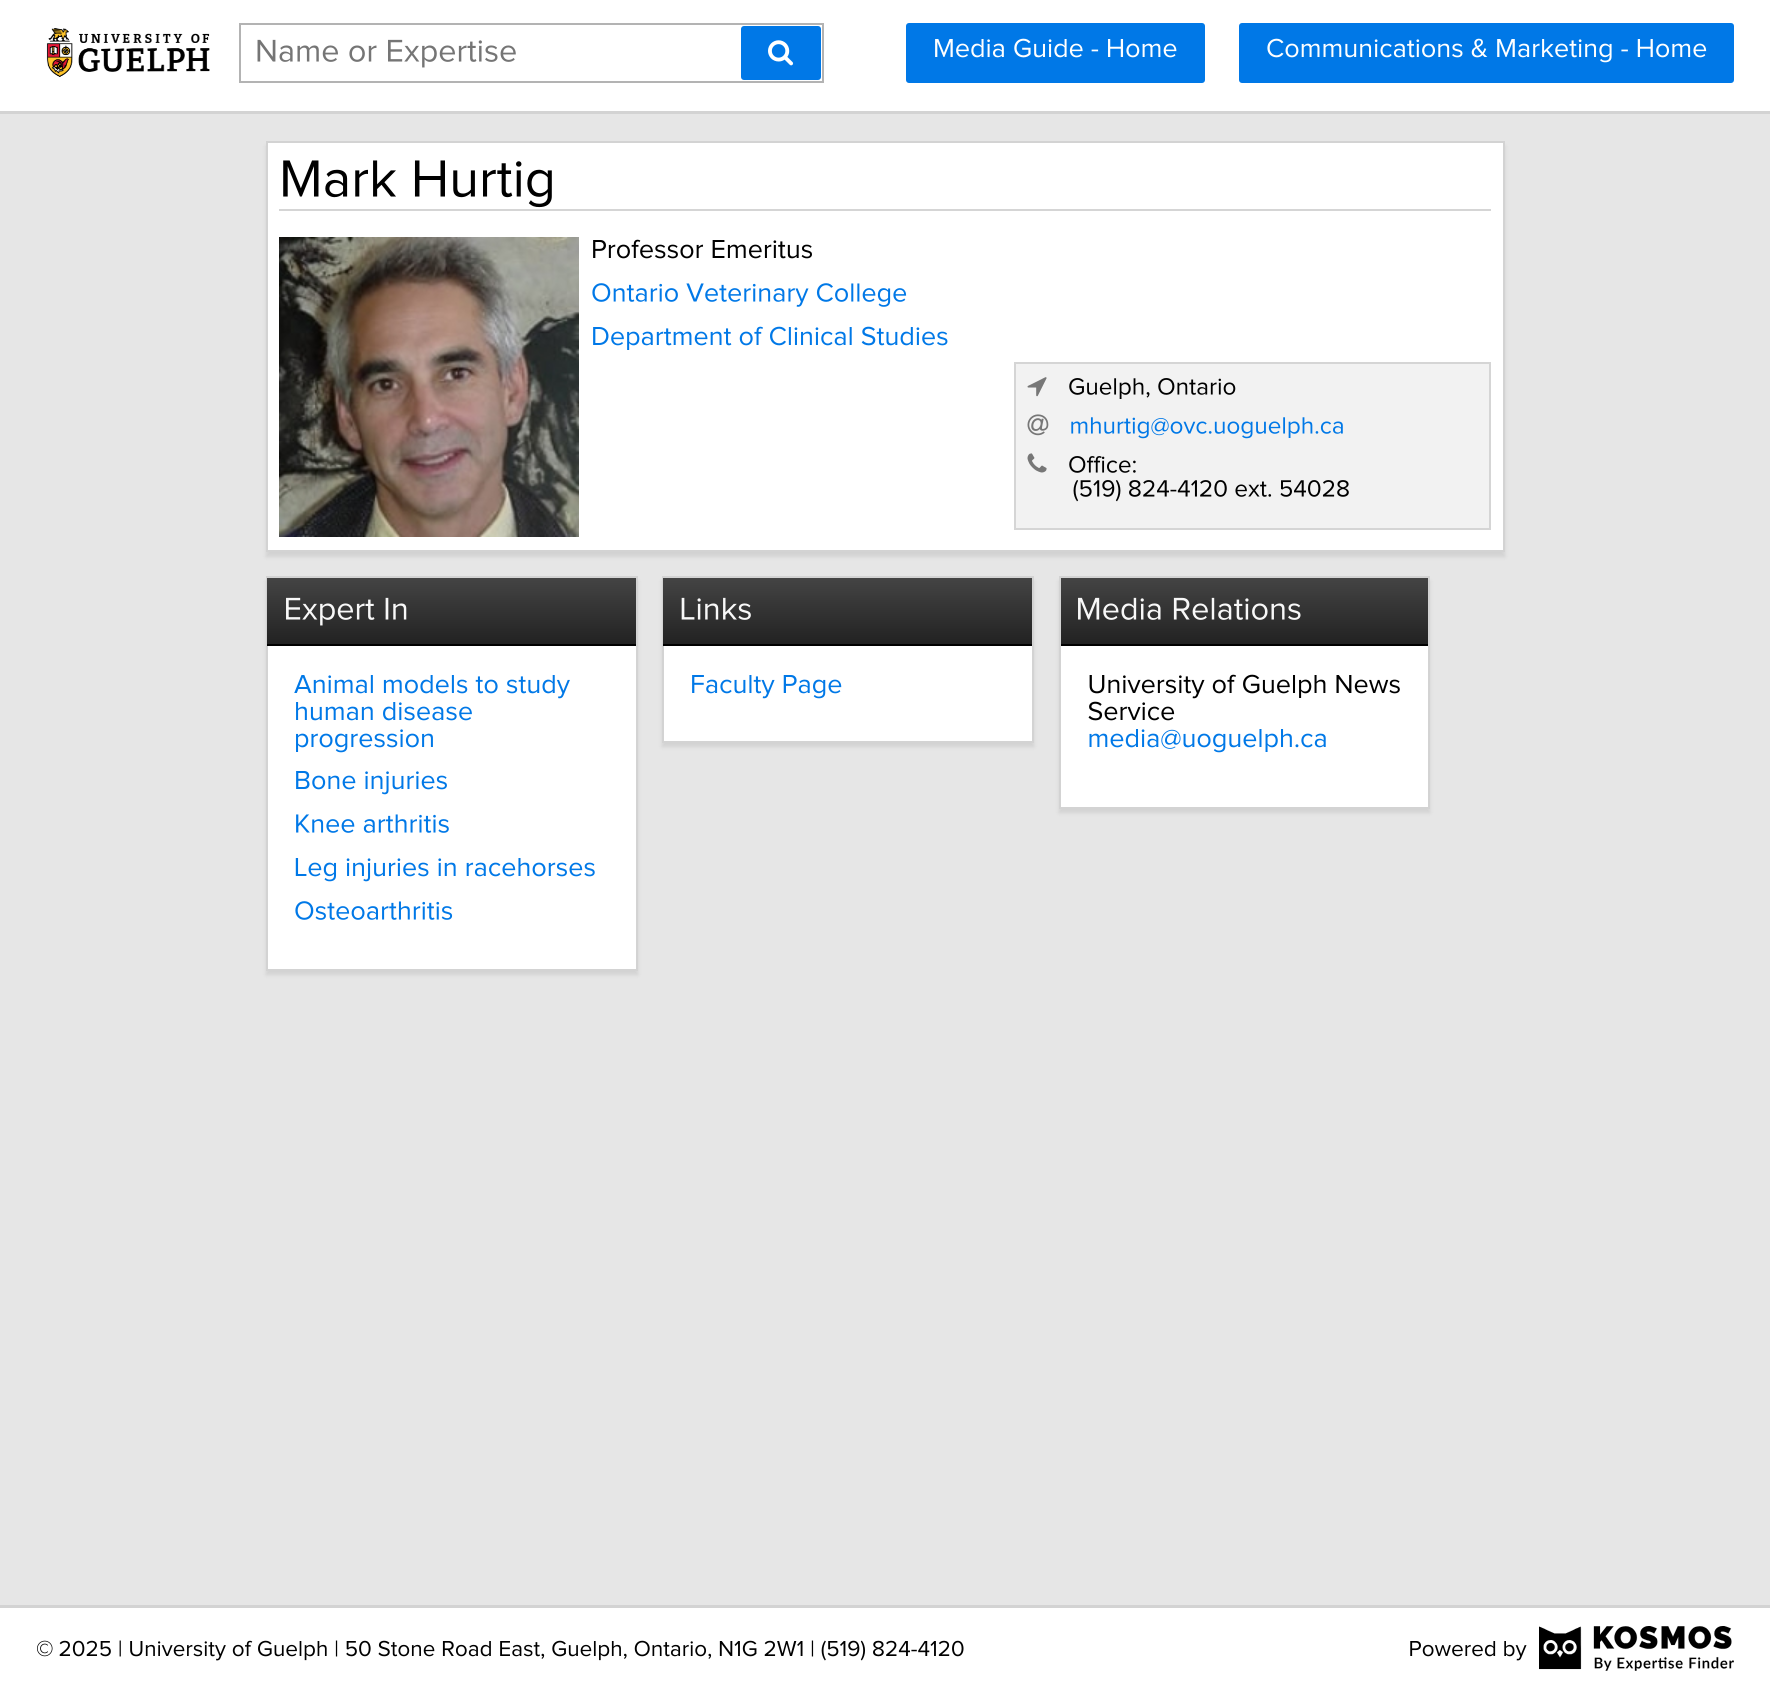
#include <cairo/cairo.h>
#include <math.h>
#include <stddef.h>


static void rounded_rect(cairo_t *cr, double x, double y, double w, double h, double r) {
  cairo_new_sub_path(cr);
  cairo_arc(cr, x + w - r, y + h - r, r, 0, M_PI / 2);
  cairo_arc(cr, x + r, y + h - r, r, M_PI / 2, M_PI);
  cairo_arc(cr, x + r, y + r, r, M_PI, 1.5 * M_PI);
  cairo_arc(cr, x + w - r, y + r, r, 1.5 * M_PI, 2 * M_PI);
  cairo_close_path(cr);
}

static void draw_shadow(cairo_t *cr, double x, double y, double w, double h, double r, double blur, double alpha) {
  cairo_push_group_with_content(cr, CAIRO_CONTENT_ALPHA);
  cairo_set_operator(cr, CAIRO_OPERATOR_SOURCE);
  for (int i = 15; i >= -15 && fmin(w, h) + blur * i / 3 > 0; i -= 2) {
    double e = blur * i / 6;
    cairo_set_source_rgba(cr, 0, 0, 0, alpha * erfc((i - 1) / 8.5) / 2);
    rounded_rect(cr, x - e, y - e, w + 2 * e, h + 2 * e, fmax(0, fmin(r + e + blur * .6, fmin(w, h) / 2 + e)));
    cairo_fill(cr);
  }
  cairo_pattern_t *soft = cairo_pop_group(cr);
  cairo_mask(cr, soft);
  cairo_pattern_destroy(soft);
}

static void draw_image(cairo_t *cr, const char *path, double x, double y, double w, double h) {
  cairo_surface_t *image = cairo_image_surface_create_from_png(path);
  cairo_save(cr);
  cairo_set_source_surface(cr, image, x, y);
  cairo_rectangle(cr, x, y, w, h);
  cairo_fill(cr);
  cairo_restore(cr);
  cairo_surface_destroy(image);
}

static void draw(cairo_t *cr) {
  cairo_pattern_t *gradient;
  cairo_set_source_rgb(cr, 230 / 255.0, 230 / 255.0, 230 / 255.0);
  cairo_paint(cr);
  cairo_set_source_rgb(cr, 1, 1, 1);
  cairo_rectangle(cr, 0, 0, 1770, 111);
  cairo_fill(cr);
  cairo_set_source_rgb(cr, 211 / 255.0, 211 / 255.0, 211 / 255.0);
  cairo_rectangle(cr, 0, 111, 1770, 3);
  cairo_fill(cr);
  draw_image(cr, "images/1.png", 46, 28, 164, 49);
  cairo_rectangle(cr, 240, 24, 583, 58);
  cairo_set_source_rgb(cr, 179 / 255.0, 179 / 255.0, 179 / 255.0);
  cairo_stroke(cr);
  draw_image(cr, "images/2.png", 257, 39, 259, 29);
  cairo_set_source_rgb(cr, 0, 120 / 255.0, 231 / 255.0);
  rounded_rect(cr, 741, 26, 80, 54, 3);
  cairo_fill(cr);
  draw_image(cr, "images/3.png", 768, 40, 26, 26);
  rounded_rect(cr, 906, 23, 299, 60, 3);
  cairo_fill(cr);
  draw_image(cr, "images/4.png", 935, 38, 242, 20);
  rounded_rect(cr, 1239, 23, 495, 60, 3);
  cairo_fill(cr);
  draw_image(cr, "images/5.png", 1267, 38, 440, 25);
  cairo_set_source_rgb(cr, 0, 0, 0);
  draw_shadow(cr, 266, 146, 1239, 411, 0, 2, 0.09);
  cairo_set_source_rgb(cr, 1, 1, 1);
  cairo_rectangle(cr, 267, 142, 1237, 409);
  cairo_fill_preserve(cr);
  cairo_set_source_rgb(cr, 211 / 255.0, 211 / 255.0, 211 / 255.0);
  cairo_stroke(cr);
  cairo_set_source_rgb(cr, 213 / 255.0, 213 / 255.0, 213 / 255.0);
  cairo_rectangle(cr, 279, 209, 1212, 2);
  cairo_fill(cr);
  draw_image(cr, "images/6.png", 283, 160, 269, 48);
  draw_image(cr, "images/7.png", 279, 237, 300, 300);
  draw_image(cr, "images/8.png", 593, 239, 219, 20);
  draw_image(cr, "images/9.png", 592, 283, 315, 24);
  draw_image(cr, "images/10.png", 593, 326, 355, 24);
  cairo_set_source_rgb(cr, 242 / 255.0, 242 / 255.0, 242 / 255.0);
  cairo_rectangle(cr, 1015, 363, 475, 166);
  cairo_fill_preserve(cr);
  cairo_set_source_rgb(cr, 213 / 255.0, 213 / 255.0, 213 / 255.0);
  cairo_stroke(cr);
  draw_image(cr, "images/11.png", 1027, 377, 20, 20);
  draw_image(cr, "images/12.png", 1069, 378, 167, 21);
  draw_image(cr, "images/13.png", 1027, 414, 22, 22);
  draw_image(cr, "images/14.png", 1071, 417, 272, 22);
  draw_image(cr, "images/15.png", 1027, 453, 20, 20);
  draw_image(cr, "images/16.png", 1069, 456, 67, 17);
  draw_image(cr, "images/17.png", 1073, 480, 276, 22);
  cairo_set_source_rgb(cr, 0, 0, 0);
  draw_shadow(cr, 266, 581, 372, 394, 0, 2, 0.09);
  cairo_set_source_rgb(cr, 1, 1, 1);
  cairo_rectangle(cr, 268, 646, 368, 323);
  cairo_fill(cr);
  cairo_rectangle(cr, 267, 577, 370, 393);
  cairo_set_source_rgb(cr, 211 / 255.0, 211 / 255.0, 211 / 255.0);
  cairo_stroke(cr);
  gradient = cairo_pattern_create_linear(452, 578, 452, 644);
  cairo_pattern_add_color_stop_rgba(gradient, 0, 68 / 255.0, 68 / 255.0, 68 / 255.0, 1);
  cairo_pattern_add_color_stop_rgba(gradient, 1, 34 / 255.0, 34 / 255.0, 34 / 255.0, 1);
  cairo_set_source(cr, gradient);
  cairo_pattern_destroy(gradient);
  cairo_rectangle(cr, 267, 578, 369, 66);
  cairo_fill(cr);
  cairo_set_source_rgb(cr, 0, 0, 0);
  cairo_rectangle(cr, 267, 644, 369, 2);
  cairo_fill(cr);
  draw_image(cr, "images/18.png", 286, 597, 121, 29);
  draw_image(cr, "images/19.png", 294, 675, 276, 24);
  draw_image(cr, "images/20.png", 296, 702, 176, 19);
  draw_image(cr, "images/21.png", 296, 729, 137, 24);
  draw_image(cr, "images/22.png", 296, 771, 151, 24);
  draw_image(cr, "images/23.png", 296, 814, 153, 19);
  draw_image(cr, "images/24.png", 295, 858, 300, 24);
  draw_image(cr, "images/25.png", 295, 901, 158, 19);
  cairo_set_source_rgb(cr, 0, 0, 0);
  draw_shadow(cr, 662, 581, 372, 166, 0, 2, 0.09);
  cairo_set_source_rgb(cr, 1, 1, 1);
  cairo_rectangle(cr, 664, 646, 368, 95);
  cairo_fill(cr);
  cairo_rectangle(cr, 663, 577, 370, 165);
  cairo_set_source_rgb(cr, 211 / 255.0, 211 / 255.0, 211 / 255.0);
  cairo_stroke(cr);
  gradient = cairo_pattern_create_linear(848, 578, 848, 644);
  cairo_pattern_add_color_stop_rgba(gradient, 0, 68 / 255.0, 68 / 255.0, 68 / 255.0, 1);
  cairo_pattern_add_color_stop_rgba(gradient, 1, 34 / 255.0, 34 / 255.0, 34 / 255.0, 1);
  cairo_set_source(cr, gradient);
  cairo_pattern_destroy(gradient);
  cairo_rectangle(cr, 663, 578, 369, 66);
  cairo_fill(cr);
  cairo_set_source_rgb(cr, 0, 0, 0);
  cairo_rectangle(cr, 663, 644, 369, 2);
  cairo_fill(cr);
  draw_image(cr, "images/26.png", 681, 597, 70, 23);
  draw_image(cr, "images/27.png", 692, 675, 150, 24);
  cairo_set_source_rgb(cr, 0, 0, 0);
  draw_shadow(cr, 1059, 581, 371, 232, 0, 2, 0.09);
  cairo_set_source_rgb(cr, 1, 1, 1);
  cairo_rectangle(cr, 1061, 646, 367, 161);
  cairo_fill(cr);
  cairo_rectangle(cr, 1060, 577, 369, 231);
  cairo_set_source_rgb(cr, 211 / 255.0, 211 / 255.0, 211 / 255.0);
  cairo_stroke(cr);
  gradient = cairo_pattern_create_linear(1244, 578, 1244, 644);
  cairo_pattern_add_color_stop_rgba(gradient, 0, 68 / 255.0, 68 / 255.0, 68 / 255.0, 1);
  cairo_pattern_add_color_stop_rgba(gradient, 1, 34 / 255.0, 34 / 255.0, 34 / 255.0, 1);
  cairo_set_source(cr, gradient);
  cairo_pattern_destroy(gradient);
  cairo_rectangle(cr, 1061, 578, 367, 66);
  cairo_fill(cr);
  cairo_set_source_rgb(cr, 0, 0, 0);
  cairo_rectangle(cr, 1061, 644, 367, 2);
  cairo_fill(cr);
  draw_image(cr, "images/28.png", 1078, 597, 223, 23);
  draw_image(cr, "images/29.png", 1089, 674, 311, 25);
  draw_image(cr, "images/30.png", 1088, 701, 87, 20);
  draw_image(cr, "images/31.png", 1089, 729, 237, 24);
  cairo_set_source_rgb(cr, 1, 1, 1);
  cairo_rectangle(cr, 0, 1608, 1770, 80);
  cairo_fill(cr);
  cairo_set_source_rgb(cr, 211 / 255.0, 211 / 255.0, 211 / 255.0);
  cairo_rectangle(cr, 0, 1605, 1770, 3);
  cairo_fill(cr);
  draw_image(cr, "images/32.png", 37, 1640, 16, 17);
  draw_image(cr, "images/33.png", 59, 1640, 905, 21);
  draw_image(cr, "images/34.png", 1410, 1641, 117, 20);
  draw_image(cr, "images/35.png", 1539, 1626, 195, 45);
}

int main(void) {
  cairo_surface_t *surface = cairo_image_surface_create(CAIRO_FORMAT_RGB24, 1770, 1688);
  cairo_t *cr = cairo_create(surface);
  cairo_font_options_t *options = cairo_font_options_create();
  cairo_font_options_set_hint_metrics(options, CAIRO_HINT_METRICS_OFF);
  cairo_font_options_set_hint_style(options, CAIRO_HINT_STYLE_NONE);
  cairo_set_font_options(cr, options);
  cairo_set_miter_limit(cr, 4);
  draw(cr);
  cairo_surface_write_to_png(surface, "out.png");
  cairo_font_options_destroy(options);
  cairo_destroy(cr);
  cairo_surface_destroy(surface);
  return 0;
}
